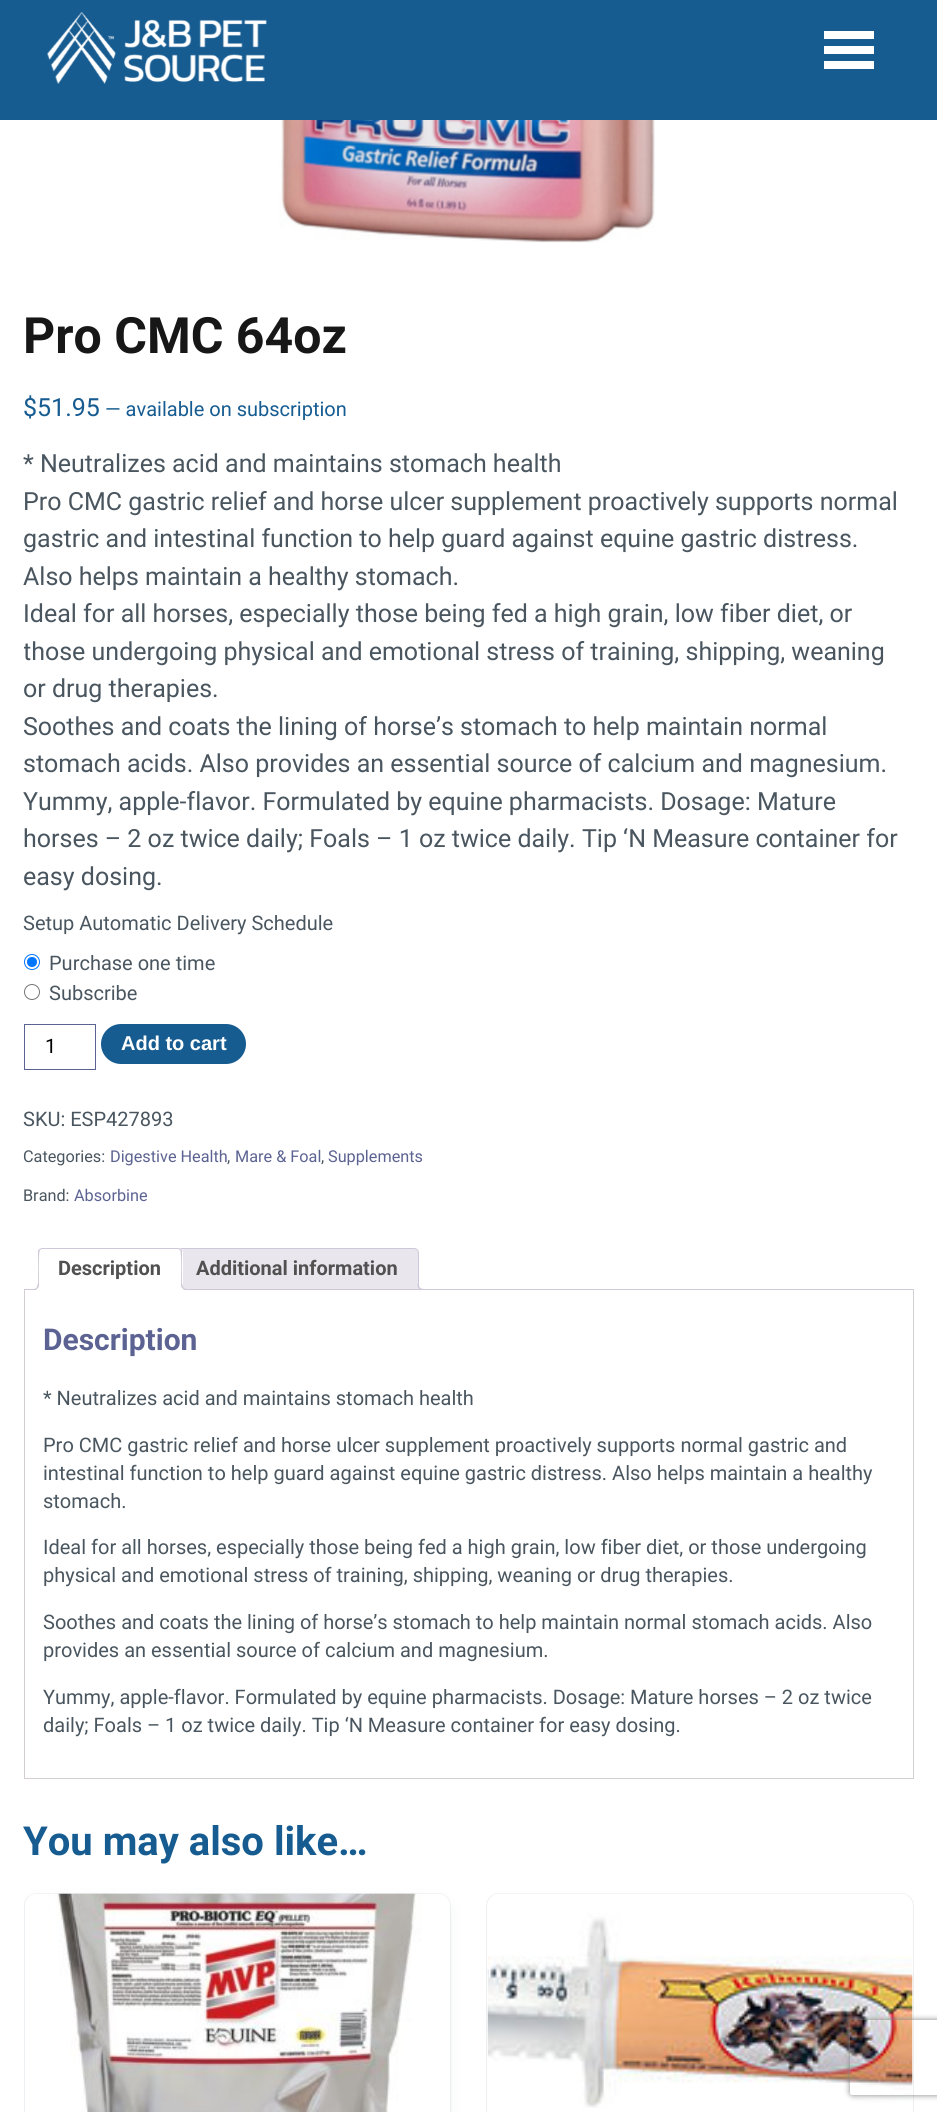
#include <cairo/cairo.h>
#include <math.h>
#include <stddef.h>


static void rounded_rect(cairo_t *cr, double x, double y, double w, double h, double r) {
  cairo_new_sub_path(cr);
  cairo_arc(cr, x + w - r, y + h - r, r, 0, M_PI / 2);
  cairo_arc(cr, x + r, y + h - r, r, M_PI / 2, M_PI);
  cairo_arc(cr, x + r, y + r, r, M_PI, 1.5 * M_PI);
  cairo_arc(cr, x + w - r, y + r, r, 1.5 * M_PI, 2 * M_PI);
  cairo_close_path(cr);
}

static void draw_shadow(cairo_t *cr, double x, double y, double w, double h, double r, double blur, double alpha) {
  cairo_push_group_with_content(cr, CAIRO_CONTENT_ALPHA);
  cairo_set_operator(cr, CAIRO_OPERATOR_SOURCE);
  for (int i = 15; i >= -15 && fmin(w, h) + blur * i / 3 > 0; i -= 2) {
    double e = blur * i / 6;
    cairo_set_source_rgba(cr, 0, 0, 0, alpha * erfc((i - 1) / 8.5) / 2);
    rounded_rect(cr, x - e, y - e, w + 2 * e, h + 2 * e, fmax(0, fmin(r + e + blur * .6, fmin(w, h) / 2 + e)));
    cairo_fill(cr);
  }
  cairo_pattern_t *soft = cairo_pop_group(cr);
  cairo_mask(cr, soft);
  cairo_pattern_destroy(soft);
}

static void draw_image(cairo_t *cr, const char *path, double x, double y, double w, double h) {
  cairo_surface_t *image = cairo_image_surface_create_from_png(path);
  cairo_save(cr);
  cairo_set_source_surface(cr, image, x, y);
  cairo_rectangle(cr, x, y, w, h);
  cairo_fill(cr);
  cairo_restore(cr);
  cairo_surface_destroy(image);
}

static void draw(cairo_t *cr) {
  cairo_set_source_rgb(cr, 1, 1, 1);
  cairo_paint(cr);
  cairo_set_source_rgb(cr, 23 / 255.0, 92 / 255.0, 145 / 255.0);
  cairo_rectangle(cr, 0, 0, 937, 120);
  cairo_fill(cr);
  draw_image(cr, "images/1.png", 47, 12, 220, 72);
  cairo_set_source_rgb(cr, 1, 1, 1);
  cairo_rectangle(cr, 824, 46, 50, 8);
  cairo_fill(cr);
  cairo_rectangle(cr, 824, 31, 50, 8);
  cairo_fill(cr);
  cairo_rectangle(cr, 824, 61, 50, 8);
  cairo_fill(cr);
  draw_image(cr, "images/2.png", 279, 120, 376, 123);
  cairo_arc(cr, 32, 962, 7.5, 0, 2 * M_PI);
  cairo_set_source_rgb(cr, 0, 117 / 255.0, 1);
  cairo_set_line_width(cr, 1);
  cairo_stroke(cr);
  cairo_arc(cr, 32, 962, 5, 0, 2 * M_PI);
  cairo_fill(cr);
  cairo_arc(cr, 32, 992, 7.5, 0, 2 * M_PI);
  cairo_set_source_rgb(cr, 118 / 255.0, 118 / 255.0, 118 / 255.0);
  cairo_stroke(cr);
  cairo_rectangle(cr, 24.5, 1024.5, 71, 45);
  cairo_set_source_rgb(cr, 92 / 255.0, 99 / 255.0, 146 / 255.0);
  cairo_stroke(cr);
  cairo_set_source_rgb(cr, 23 / 255.0, 92 / 255.0, 145 / 255.0);
  rounded_rect(cr, 101, 1024, 145, 40, 20);
  cairo_fill(cr);
  cairo_set_source_rgb(cr, 233 / 255.0, 230 / 255.0, 237 / 255.0);
  cairo_new_path(cr);
  cairo_move_to(cr, 180, 1248.5);
  cairo_line_to(cr, 414, 1248.5);
  cairo_curve_to(cr, 416.5, 1248.5, 418.5, 1250.5, 418.5, 1253);
  cairo_line_to(cr, 418.5, 1289.5);
  cairo_line_to(cr, 175.5, 1289.5);
  cairo_line_to(cr, 175.5, 1253);
  cairo_curve_to(cr, 175.5, 1250.5, 177.5, 1248.5, 180, 1248.5);
  cairo_close_path(cr);
  cairo_fill_preserve(cr);
  cairo_set_source_rgb(cr, 207 / 255.0, 200 / 255.0, 216 / 255.0);
  cairo_stroke(cr);
  cairo_save(cr);
  cairo_rectangle(cr, 24, 1248, 890, 42);
  cairo_clip(cr);
  cairo_set_source_rgb(cr, 233 / 255.0, 230 / 255.0, 237 / 255.0);
  cairo_new_path(cr);
  cairo_move_to(cr, 415, 1286);
  cairo_curve_to(cr, 415, 1290.5, 416, 1293, 421, 1293);
  cairo_line_to(cr, 421, 1290);
  cairo_curve_to(cr, 419.5, 1289, 418, 1288, 417.5, 1286);
  cairo_close_path(cr);
  cairo_fill(cr);
  cairo_restore(cr);
  cairo_set_fill_rule(cr, CAIRO_FILL_RULE_EVEN_ODD);
  cairo_new_path(cr);
  cairo_move_to(cr, 417.5, 1284);
  cairo_line_to(cr, 424, 1284);
  cairo_line_to(cr, 424, 1290);
  cairo_curve_to(cr, 420.5, 1290, 417.5, 1288.5, 417.5, 1285);
  cairo_close_path(cr);
  cairo_move_to(cr, 419, 1284);
  cairo_line_to(cr, 424, 1284);
  cairo_line_to(cr, 424, 1289);
  cairo_curve_to(cr, 421.5, 1289, 419, 1288, 419, 1285);
  cairo_close_path(cr);
  cairo_fill(cr);
  cairo_rectangle(cr, 24, 1289, 890, 1);
  cairo_fill(cr);
  cairo_set_source_rgb(cr, 1, 1, 1);
  cairo_new_path(cr);
  cairo_move_to(cr, 43, 1248);
  cairo_line_to(cr, 178, 1248);
  cairo_curve_to(cr, 181, 1248, 183, 1250, 183, 1253);
  cairo_line_to(cr, 183, 1290);
  cairo_line_to(cr, 38, 1290);
  cairo_line_to(cr, 38, 1253);
  cairo_curve_to(cr, 38, 1250, 40, 1248, 43, 1248);
  cairo_close_path(cr);
  cairo_fill(cr);
  cairo_set_source_rgb(cr, 207 / 255.0, 200 / 255.0, 216 / 255.0);
  cairo_set_fill_rule(cr, CAIRO_FILL_RULE_WINDING);
  cairo_new_path(cr);
  cairo_move_to(cr, 42, 1248);
  cairo_line_to(cr, 39, 1249);
  cairo_line_to(cr, 40, 1250);
  cairo_line_to(cr, 42, 1249);
  cairo_line_to(cr, 178, 1249);
  cairo_line_to(cr, 180, 1250);
  cairo_line_to(cr, 181, 1249);
  cairo_line_to(cr, 178, 1248);
  cairo_close_path(cr);
  cairo_fill(cr);
  cairo_new_path(cr);
  cairo_move_to(cr, 182, 1290);
  cairo_line_to(cr, 182, 1252);
  cairo_curve_to(cr, 182, 1251, 182, 1250, 181, 1249);
  cairo_line_to(cr, 180, 1250);
  cairo_curve_to(cr, 182, 1252, 181, 1284, 181, 1288);
  cairo_close_path(cr);
  cairo_fill(cr);
  cairo_set_source_rgb(cr, 1, 1, 1);
  cairo_new_path(cr);
  cairo_move_to(cr, 38, 1290);
  cairo_line_to(cr, 182, 1290);
  cairo_line_to(cr, 181, 1288);
  cairo_line_to(cr, 181, 1289);
  cairo_line_to(cr, 39, 1289);
  cairo_line_to(cr, 39, 1288);
  cairo_close_path(cr);
  cairo_fill(cr);
  cairo_set_source_rgb(cr, 207 / 255.0, 200 / 255.0, 216 / 255.0);
  cairo_new_path(cr);
  cairo_move_to(cr, 39, 1249);
  cairo_curve_to(cr, 38, 1250, 38, 1251, 38, 1252);
  cairo_line_to(cr, 38, 1290);
  cairo_line_to(cr, 39, 1288);
  cairo_curve_to(cr, 39, 1284, 38, 1252, 40, 1250);
  cairo_close_path(cr);
  cairo_fill(cr);
  cairo_save(cr);
  cairo_rectangle(cr, 24, 1248, 890, 42);
  cairo_clip(cr);
  cairo_set_source_rgb(cr, 1, 1, 1);
  cairo_new_path(cr);
  cairo_move_to(cr, 35, 1290);
  cairo_line_to(cr, 35, 1293);
  cairo_curve_to(cr, 40, 1293, 41, 1290.5, 41, 1286);
  cairo_line_to(cr, 38.5, 1286);
  cairo_curve_to(cr, 38.5, 1288, 37, 1289.5, 35, 1290);
  cairo_close_path(cr);
  cairo_fill(cr);
  cairo_restore(cr);
  cairo_set_fill_rule(cr, CAIRO_FILL_RULE_EVEN_ODD);
  cairo_new_path(cr);
  cairo_move_to(cr, 32.5, 1284);
  cairo_line_to(cr, 39, 1284);
  cairo_curve_to(cr, 39, 1288, 37, 1290, 32.5, 1290);
  cairo_close_path(cr);
  cairo_move_to(cr, 32.5, 1284);
  cairo_line_to(cr, 37.5, 1284);
  cairo_curve_to(cr, 37.5, 1287.5, 36, 1289, 32.5, 1289);
  cairo_close_path(cr);
  cairo_fill(cr);
  cairo_save(cr);
  cairo_set_fill_rule(cr, CAIRO_FILL_RULE_WINDING);
  cairo_rectangle(cr, 24, 1248, 890, 42);
  cairo_clip(cr);
  cairo_set_source_rgb(cr, 1, 1, 1);
  cairo_new_path(cr);
  cairo_move_to(cr, 179, 1286);
  cairo_curve_to(cr, 179, 1290.5, 180, 1293, 185, 1293);
  cairo_line_to(cr, 185, 1290);
  cairo_curve_to(cr, 183, 1289.5, 181.5, 1288, 181.5, 1286);
  cairo_close_path(cr);
  cairo_fill(cr);
  cairo_restore(cr);
  cairo_new_path(cr);
  cairo_move_to(cr, 181, 1284);
  cairo_line_to(cr, 187.5, 1284);
  cairo_line_to(cr, 187.5, 1290);
  cairo_curve_to(cr, 184.5, 1290, 181, 1288.5, 181, 1285);
  cairo_close_path(cr);
  cairo_move_to(cr, 182.5, 1284);
  cairo_line_to(cr, 187.5, 1284);
  cairo_line_to(cr, 187.5, 1289);
  cairo_curve_to(cr, 185, 1289, 182.5, 1288, 182.5, 1285);
  cairo_close_path(cr);
  cairo_fill(cr);
  cairo_set_source_rgb(cr, 211 / 255.0, 206 / 255.0, 210 / 255.0);
  cairo_rectangle(cr, 913, 1290, 1, 489);
  cairo_fill(cr);
  cairo_rectangle(cr, 24, 1778, 890, 1);
  cairo_fill(cr);
  cairo_rectangle(cr, 24, 1290, 1, 489);
  cairo_fill(cr);
  cairo_save(cr);
  cairo_set_fill_rule(cr, CAIRO_FILL_RULE_WINDING);
  cairo_rectangle(cr, 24, 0, 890, 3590);
  cairo_clip(cr);
  cairo_set_source_rgb(cr, 74 / 255.0, 86 / 255.0, 95 / 255.0);
  draw_shadow(cr, 34, 1909, 407, 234, 2.5, 9.5, 0.25);
  cairo_restore(cr);
  rounded_rect(cr, 24.5, 1893.5, 426, 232, 12.5);
  cairo_set_source_rgb(cr, 236 / 255.0, 239 / 255.0, 241 / 255.0);
  cairo_stroke(cr);
  draw_image(cr, "images/3.png", 25, 1893, 425, 219);
  rounded_rect(cr, 486.5, 1893.5, 427, 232, 12.5);
  cairo_stroke(cr);
  draw_image(cr, "images/4.png", 487, 1893, 426, 215);
  cairo_save(cr);
  cairo_new_path(cr);
  cairo_move_to(cr, 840, 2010);
  cairo_line_to(cr, 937, 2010);
  cairo_line_to(cr, 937, 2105);
  cairo_line_to(cr, 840, 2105);
  cairo_close_path(cr);
  cairo_move_to(cr, 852.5, 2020);
  cairo_line_to(cr, 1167.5, 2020);
  cairo_curve_to(cr, 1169, 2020, 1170, 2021, 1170, 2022.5);
  cairo_line_to(cr, 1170, 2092.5);
  cairo_curve_to(cr, 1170, 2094, 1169, 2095, 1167.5, 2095);
  cairo_line_to(cr, 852.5, 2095);
  cairo_curve_to(cr, 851, 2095, 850, 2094, 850, 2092.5);
  cairo_line_to(cr, 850, 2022.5);
  cairo_curve_to(cr, 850, 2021, 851, 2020, 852.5, 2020);
  cairo_close_path(cr);
  cairo_clip(cr);
  cairo_set_source_rgb(cr, 128 / 255.0, 128 / 255.0, 128 / 255.0);
  draw_shadow(cr, 850, 2020, 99, 75, 2.5, 3, 1);
  cairo_restore(cr);
  cairo_select_font_face(cr, "Roboto", CAIRO_FONT_SLANT_NORMAL, CAIRO_FONT_WEIGHT_BOLD);
  cairo_set_font_size(cr, 50);
  cairo_set_source_rgb(cr, 23 / 255.0, 23 / 255.0, 23 / 255.0);
  cairo_move_to(cr, 23, 353);
  cairo_show_text(cr, "Pro CMC 64oz");
  cairo_select_font_face(cr, "Roboto", CAIRO_FONT_SLANT_NORMAL, CAIRO_FONT_WEIGHT_NORMAL);
  cairo_set_font_size(cr, 25);
  cairo_set_source_rgb(cr, 23 / 255.0, 92 / 255.0, 145 / 255.0);
  cairo_move_to(cr, 23, 416);
  cairo_show_text(cr, "$51.95");
  cairo_set_font_size(cr, 20);
  cairo_move_to(cr, 105, 416);
  cairo_show_text(cr, "— available on subscription");
  cairo_set_font_size(cr, 25);
  cairo_set_source_rgb(cr, 74 / 255.0, 86 / 255.0, 95 / 255.0);
  cairo_move_to(cr, 23, 472);
  cairo_show_text(cr, "* Neutralizes acid and maintains stomach health");
  cairo_move_to(cr, 23, 510);
  cairo_show_text(cr, "Pro CMC gastric relief and horse ulcer supplement proactively supports normal");
  cairo_move_to(cr, 23, 547);
  cairo_show_text(cr, "gastric and intestinal function to help guard against equine gastric distress.");
  cairo_move_to(cr, 23, 585);
  cairo_show_text(cr, "Also helps maintain a healthy stomach.");
  cairo_move_to(cr, 23, 622);
  cairo_show_text(cr, "Ideal for all horses, especially those being fed a high grain, low fiber diet, or");
  cairo_save(cr);
  cairo_set_fill_rule(cr, CAIRO_FILL_RULE_WINDING);
  cairo_rectangle(cr, 24, 0, 890, 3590);
  cairo_clip(cr);
  cairo_move_to(cr, 23, 660);
  cairo_show_text(cr, "those undergoing physical and emotional stress of training, shipping, weaning");
  cairo_restore(cr);
  cairo_move_to(cr, 23, 697);
  cairo_show_text(cr, "or drug therapies.");
  cairo_move_to(cr, 23, 735);
  cairo_show_text(cr, "Soothes and coats the lining of horse’s stomach to help maintain normal");
  cairo_move_to(cr, 23, 772);
  cairo_show_text(cr, "stomach acids. Also provides an essential source of calcium and magnesium.");
  cairo_move_to(cr, 23, 810);
  cairo_show_text(cr, "Yummy, apple-flavor. Formulated by equine pharmacists. Dosage: Mature");
  cairo_move_to(cr, 23, 847);
  cairo_show_text(cr, "horses – 2 oz twice daily; Foals – 1 oz twice daily. Tip ‘N Measure container for");
  cairo_move_to(cr, 23, 885);
  cairo_show_text(cr, "easy dosing.");
  cairo_set_font_size(cr, 20);
  cairo_move_to(cr, 23, 930);
  cairo_show_text(cr, "Setup Automatic Delivery Schedule");
  cairo_move_to(cr, 49, 970);
  cairo_show_text(cr, "Purchase one time");
  cairo_move_to(cr, 49, 1000);
  cairo_show_text(cr, "Subscribe");
  cairo_set_source_rgb(cr, 0, 0, 0);
  cairo_move_to(cr, 45, 1053);
  cairo_show_text(cr, "1");
  cairo_select_font_face(cr, "Liberation Sans", CAIRO_FONT_SLANT_NORMAL, CAIRO_FONT_WEIGHT_BOLD);
  cairo_set_source_rgb(cr, 1, 1, 1);
  cairo_move_to(cr, 121, 1050);
  cairo_show_text(cr, "Add to cart");
  cairo_select_font_face(cr, "Roboto", CAIRO_FONT_SLANT_NORMAL, CAIRO_FONT_WEIGHT_NORMAL);
  cairo_set_source_rgb(cr, 74 / 255.0, 86 / 255.0, 95 / 255.0);
  cairo_move_to(cr, 23, 1126);
  cairo_show_text(cr, "SKU: ESP427893");
  cairo_set_font_size(cr, 16.25);
  cairo_move_to(cr, 23, 1162);
  cairo_show_text(cr, "Categories:");
  cairo_set_source_rgb(cr, 92 / 255.0, 99 / 255.0, 146 / 255.0);
  cairo_move_to(cr, 110, 1162);
  cairo_show_text(cr, "Digestive Health");
  cairo_set_source_rgb(cr, 74 / 255.0, 86 / 255.0, 95 / 255.0);
  cairo_move_to(cr, 227, 1162);
  cairo_show_text(cr, ",");
  cairo_set_source_rgb(cr, 92 / 255.0, 99 / 255.0, 146 / 255.0);
  cairo_move_to(cr, 235, 1162);
  cairo_show_text(cr, "Mare & Foal");
  cairo_set_source_rgb(cr, 74 / 255.0, 86 / 255.0, 95 / 255.0);
  cairo_move_to(cr, 321, 1162);
  cairo_show_text(cr, ",");
  cairo_set_source_rgb(cr, 92 / 255.0, 99 / 255.0, 146 / 255.0);
  cairo_move_to(cr, 328, 1162);
  cairo_show_text(cr, "Supplements");
  cairo_set_source_rgb(cr, 74 / 255.0, 86 / 255.0, 95 / 255.0);
  cairo_move_to(cr, 23, 1201);
  cairo_show_text(cr, "Brand:");
  cairo_set_source_rgb(cr, 92 / 255.0, 99 / 255.0, 146 / 255.0);
  cairo_move_to(cr, 74, 1201);
  cairo_show_text(cr, "Absorbine");
  cairo_select_font_face(cr, "Roboto", CAIRO_FONT_SLANT_NORMAL, CAIRO_FONT_WEIGHT_BOLD);
  cairo_set_font_size(cr, 20);
  cairo_set_source_rgb(cr, 81 / 255.0, 81 / 255.0, 81 / 255.0);
  cairo_move_to(cr, 58, 1275);
  cairo_show_text(cr, "Description");
  cairo_move_to(cr, 196, 1275);
  cairo_show_text(cr, "Additional information");
  cairo_set_font_size(cr, 30);
  cairo_set_source_rgb(cr, 92 / 255.0, 99 / 255.0, 146 / 255.0);
  cairo_move_to(cr, 43, 1350);
  cairo_show_text(cr, "Description");
  cairo_select_font_face(cr, "Roboto", CAIRO_FONT_SLANT_NORMAL, CAIRO_FONT_WEIGHT_NORMAL);
  cairo_set_font_size(cr, 20);
  cairo_set_source_rgb(cr, 74 / 255.0, 86 / 255.0, 95 / 255.0);
  cairo_move_to(cr, 43, 1405);
  cairo_show_text(cr, "* Neutralizes acid and maintains stomach health");
  cairo_move_to(cr, 43, 1452);
  cairo_show_text(cr, "Pro CMC gastric relief and horse ulcer supplement proactively supports normal gastric and");
  cairo_move_to(cr, 43, 1480);
  cairo_show_text(cr, "intestinal function to help guard against equine gastric distress. Also helps maintain a healthy");
  cairo_move_to(cr, 43, 1508);
  cairo_show_text(cr, "stomach.");
  cairo_move_to(cr, 43, 1554);
  cairo_show_text(cr, "Ideal for all horses, especially those being fed a high grain, low fiber diet, or those undergoing");
  cairo_move_to(cr, 43, 1582);
  cairo_show_text(cr, "physical and emotional stress of training, shipping, weaning or drug therapies.");
  cairo_move_to(cr, 43, 1629);
  cairo_show_text(cr, "Soothes and coats the lining of horse’s stomach to help maintain normal stomach acids. Also");
  cairo_move_to(cr, 43, 1657);
  cairo_show_text(cr, "provides an essential source of calcium and magnesium.");
  cairo_move_to(cr, 43, 1704);
  cairo_show_text(cr, "Yummy, apple-flavor. Formulated by equine pharmacists. Dosage: Mature horses – 2 oz twice");
  cairo_move_to(cr, 43, 1732);
  cairo_show_text(cr, "daily; Foals – 1 oz twice daily. Tip ‘N Measure container for easy dosing.");
  cairo_select_font_face(cr, "Roboto", CAIRO_FONT_SLANT_NORMAL, CAIRO_FONT_WEIGHT_BOLD);
  cairo_set_font_size(cr, 40);
  cairo_set_source_rgb(cr, 23 / 255.0, 92 / 255.0, 145 / 255.0);
  cairo_move_to(cr, 23, 1855);
  cairo_show_text(cr, "You may also like…");
}

int main(void) {
  cairo_surface_t *surface = cairo_image_surface_create(CAIRO_FORMAT_RGB24, 937, 2112);
  cairo_t *cr = cairo_create(surface);
  cairo_font_options_t *options = cairo_font_options_create();
  cairo_font_options_set_hint_metrics(options, CAIRO_HINT_METRICS_OFF);
  cairo_font_options_set_hint_style(options, CAIRO_HINT_STYLE_NONE);
  cairo_set_font_options(cr, options);
  cairo_set_miter_limit(cr, 4);
  draw(cr);
  cairo_surface_write_to_png(surface, "out.png");
  cairo_font_options_destroy(options);
  cairo_destroy(cr);
  cairo_surface_destroy(surface);
  return 0;
}
